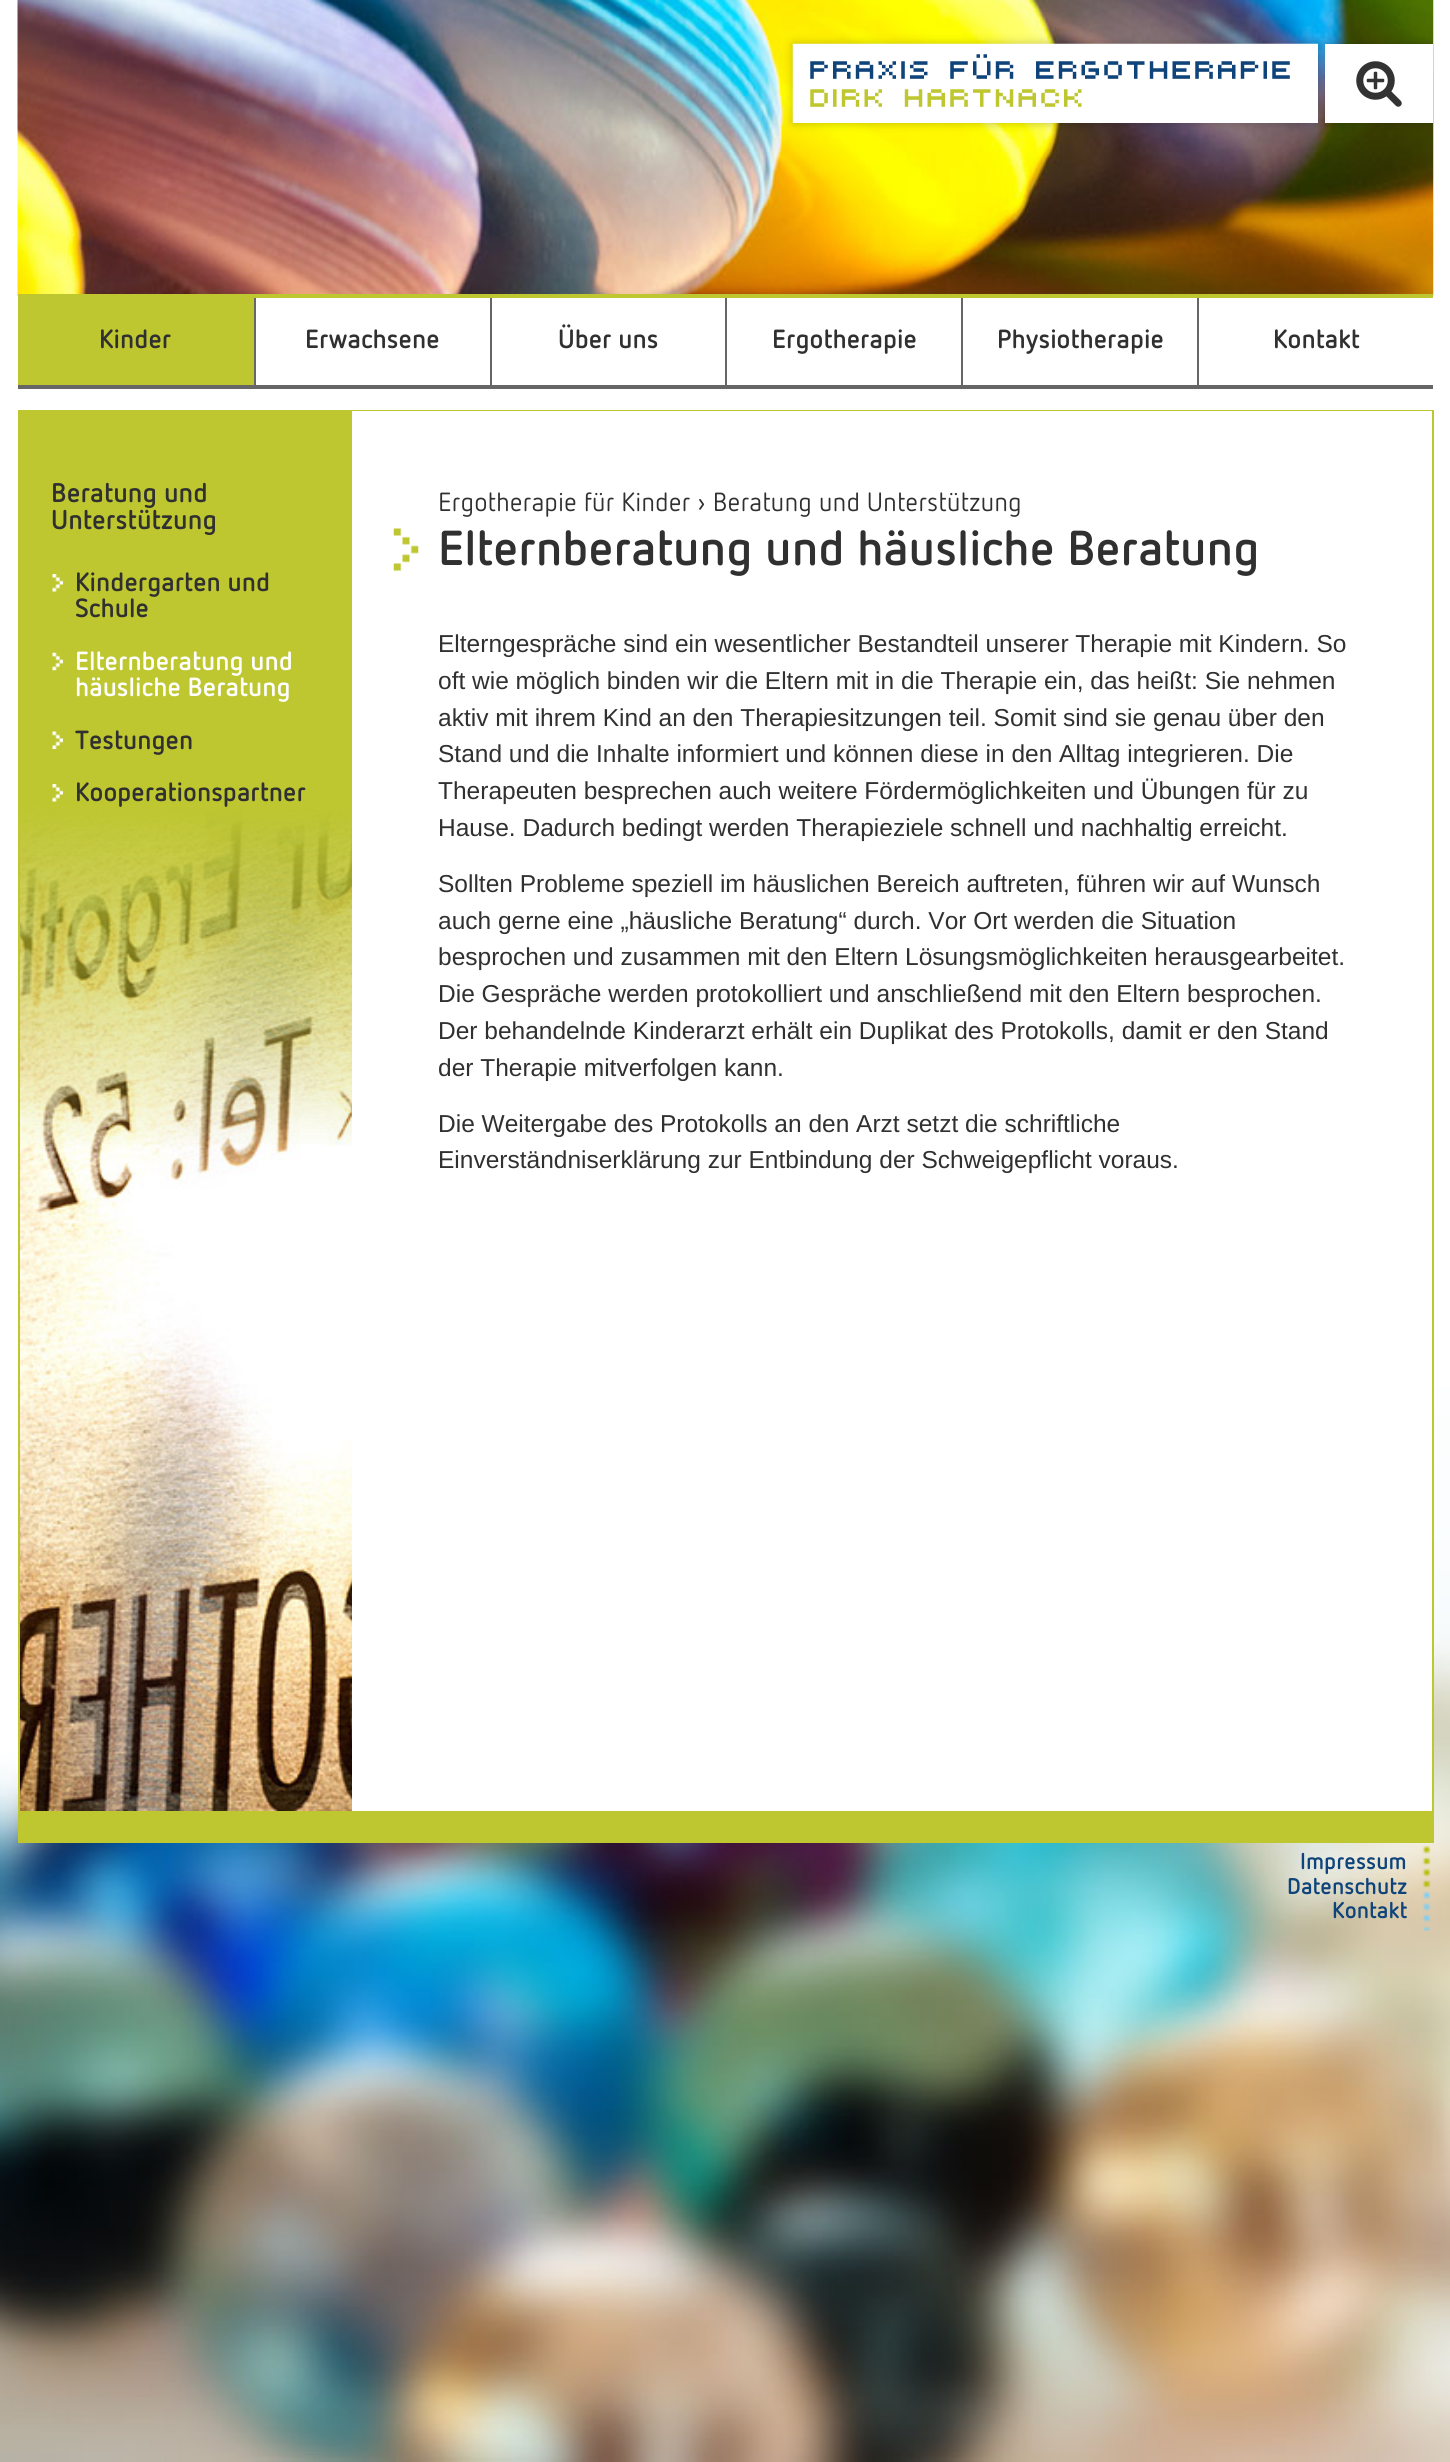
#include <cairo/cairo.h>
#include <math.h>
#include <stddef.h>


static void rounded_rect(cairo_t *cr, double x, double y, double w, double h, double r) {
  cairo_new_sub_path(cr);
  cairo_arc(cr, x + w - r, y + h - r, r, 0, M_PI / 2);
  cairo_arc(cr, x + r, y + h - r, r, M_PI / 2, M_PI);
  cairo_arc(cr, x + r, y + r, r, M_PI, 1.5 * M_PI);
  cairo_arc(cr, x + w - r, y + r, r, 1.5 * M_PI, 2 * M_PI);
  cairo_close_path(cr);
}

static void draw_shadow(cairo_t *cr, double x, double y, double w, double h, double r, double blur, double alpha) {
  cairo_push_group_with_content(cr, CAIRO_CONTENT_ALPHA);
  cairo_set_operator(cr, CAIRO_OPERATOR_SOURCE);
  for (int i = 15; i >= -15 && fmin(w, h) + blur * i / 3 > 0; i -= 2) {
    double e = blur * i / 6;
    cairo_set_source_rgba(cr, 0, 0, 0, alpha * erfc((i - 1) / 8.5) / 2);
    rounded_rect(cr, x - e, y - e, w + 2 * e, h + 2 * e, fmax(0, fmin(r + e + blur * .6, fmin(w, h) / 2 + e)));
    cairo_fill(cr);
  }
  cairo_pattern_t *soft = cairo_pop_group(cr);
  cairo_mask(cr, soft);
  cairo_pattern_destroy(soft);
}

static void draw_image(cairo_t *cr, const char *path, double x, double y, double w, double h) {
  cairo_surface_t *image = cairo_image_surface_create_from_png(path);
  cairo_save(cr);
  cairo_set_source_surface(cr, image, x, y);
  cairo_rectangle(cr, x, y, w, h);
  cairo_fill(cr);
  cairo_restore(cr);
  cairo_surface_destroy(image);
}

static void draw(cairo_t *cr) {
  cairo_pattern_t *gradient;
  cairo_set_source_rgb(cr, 1, 1, 1);
  cairo_paint(cr);
  draw_image(cr, "images/1.png", 0, 1388, 1450, 1074);
  draw_image(cr, "images/2.png", 17, 0, 1417, 296);
  cairo_set_source_rgb(cr, 190 / 255.0, 199 / 255.0, 47 / 255.0);
  cairo_rectangle(cr, 18, 294, 1415, 4);
  cairo_fill(cr);
  cairo_save(cr);
  cairo_rectangle(cr, 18, 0, 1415, 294);
  cairo_clip(cr);
  cairo_set_source_rgb(cr, 0, 0, 0);
  draw_shadow(cr, 1325, 44, 108, 79, 0, 4.5, 0.25);
  cairo_restore(cr);
  cairo_set_source_rgb(cr, 1, 1, 1);
  cairo_rectangle(cr, 1325, 44, 108, 79);
  cairo_fill(cr);
  cairo_set_source_rgb(cr, 0, 0, 0);
  draw_shadow(cr, 793, 44, 525, 79, 0, 4.5, 0.25);
  cairo_set_source_rgb(cr, 1, 1, 1);
  cairo_rectangle(cr, 793, 44, 525, 79);
  cairo_fill(cr);
  draw_image(cr, "images/3.png", 792, 43, 526, 80);
  draw_image(cr, "images/4.png", 1356, 61, 46, 46);
  cairo_set_source_rgb(cr, 102 / 255.0, 102 / 255.0, 102 / 255.0);
  cairo_rectangle(cr, 18, 385, 1415, 4);
  cairo_fill(cr);
  cairo_set_source_rgb(cr, 190 / 255.0, 199 / 255.0, 47 / 255.0);
  cairo_rectangle(cr, 18, 298, 236, 87);
  cairo_fill(cr);
  cairo_set_source_rgb(cr, 102 / 255.0, 102 / 255.0, 102 / 255.0);
  cairo_rectangle(cr, 254, 298, 2, 87);
  cairo_fill(cr);
  cairo_rectangle(cr, 490, 298, 2, 87);
  cairo_fill(cr);
  cairo_rectangle(cr, 725, 298, 2, 87);
  cairo_fill(cr);
  cairo_rectangle(cr, 961, 298, 2, 87);
  cairo_fill(cr);
  cairo_rectangle(cr, 1197, 298, 2, 87);
  cairo_fill(cr);
  draw_image(cr, "images/5.png", 20, 805, 332, 1006);
  cairo_set_source_rgb(cr, 190 / 255.0, 199 / 255.0, 47 / 255.0);
  cairo_rectangle(cr, 18, 410, 1415, 1);
  cairo_fill(cr);
  cairo_rectangle(cr, 1432, 410, 2, 1433);
  cairo_fill(cr);
  cairo_rectangle(cr, 20, 1811, 1412, 32);
  cairo_fill(cr);
  cairo_rectangle(cr, 18, 410, 2, 1433);
  cairo_fill(cr);
  gradient = cairo_pattern_create_linear(725, 1811, 725, 411);
  cairo_pattern_add_color_stop_rgba(gradient, 0.47, 190 / 255.0, 199 / 255.0, 47 / 255.0, 0);
  cairo_pattern_add_color_stop_rgba(gradient, 0.72, 190 / 255.0, 199 / 255.0, 47 / 255.0, 1);
  cairo_set_source(cr, gradient);
  cairo_pattern_destroy(gradient);
  cairo_rectangle(cr, 20, 411, 332, 734);
  cairo_fill(cr);
  draw_image(cr, "images/6.png", 52, 574, 11, 18);
  draw_image(cr, "images/7.png", 52, 652, 11, 19);
  draw_image(cr, "images/8.png", 52, 731, 11, 18);
  draw_image(cr, "images/6.png", 52, 784, 11, 18);
  cairo_set_source_rgb(cr, 1, 1, 1);
  cairo_rectangle(cr, 352, 1388, 1080, 423);
  cairo_fill(cr);
  draw_image(cr, "images/9.png", 393, 528, 26, 43);
  draw_image(cr, "images/10.png", 1422, 1845, 9, 86);
  cairo_select_font_face(cr, "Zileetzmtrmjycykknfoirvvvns", CAIRO_FONT_SLANT_NORMAL, CAIRO_FONT_WEIGHT_BOLD);
  cairo_set_font_size(cr, 26.25);
  cairo_set_source_rgb(cr, 48 / 255.0, 48 / 255.0, 48 / 255.0);
  cairo_move_to(cr, 99, 348);
  cairo_show_text(cr, "Kinder");
  cairo_move_to(cr, 305, 348);
  cairo_show_text(cr, "Erwachsene");
  cairo_move_to(cr, 558, 348);
  cairo_show_text(cr, "Über uns");
  cairo_move_to(cr, 772, 348);
  cairo_show_text(cr, "Ergotherapie");
  cairo_move_to(cr, 997, 348);
  cairo_show_text(cr, "Physiotherapie");
  cairo_move_to(cr, 1273, 348);
  cairo_show_text(cr, "Kontakt");
  cairo_set_font_size(cr, 27);
  cairo_move_to(cr, 51, 502);
  cairo_show_text(cr, "Beratung und");
  cairo_move_to(cr, 51, 529);
  cairo_show_text(cr, "Unterstützung");
  cairo_set_font_size(cr, 26.25);
  cairo_move_to(cr, 75, 591);
  cairo_show_text(cr, "Kindergarten und");
  cairo_move_to(cr, 75, 617);
  cairo_show_text(cr, "Schule");
  cairo_set_source_rgb(cr, 1, 1, 1);
  cairo_move_to(cr, 75, 670);
  cairo_show_text(cr, "Elternberatung und");
  cairo_move_to(cr, 75, 696);
  cairo_show_text(cr, "häusliche Beratung");
  cairo_set_source_rgb(cr, 48 / 255.0, 48 / 255.0, 48 / 255.0);
  cairo_move_to(cr, 75, 749);
  cairo_show_text(cr, "Testungen");
  cairo_move_to(cr, 75, 801);
  cairo_show_text(cr, "Kooperationspartner");
  cairo_select_font_face(cr, "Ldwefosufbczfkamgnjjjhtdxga", CAIRO_FONT_SLANT_NORMAL, CAIRO_FONT_WEIGHT_NORMAL);
  cairo_move_to(cr, 438, 511);
  cairo_show_text(cr, "Ergotherapie für Kinder › Beratung und Unterstützung");
  cairo_select_font_face(cr, "Zileetzmtrmjycykknfoirvvvns", CAIRO_FONT_SLANT_NORMAL, CAIRO_FONT_WEIGHT_BOLD);
  cairo_set_font_size(cr, 49);
  cairo_move_to(cr, 438, 565);
  cairo_show_text(cr, "Elternberatung und häusliche Beratung");
  cairo_select_font_face(cr, "Liberation Sans", CAIRO_FONT_SLANT_NORMAL, CAIRO_FONT_WEIGHT_NORMAL);
  cairo_set_font_size(cr, 24.5);
  cairo_move_to(cr, 438, 652);
  cairo_show_text(cr, "Elterngespräche sind ein wesentlicher Bestandteil unserer Therapie mit Kindern. So");
  cairo_move_to(cr, 438, 689);
  cairo_show_text(cr, "oft wie möglich binden wir die Eltern mit in die Therapie ein, das heißt: Sie nehmen");
  cairo_move_to(cr, 438, 726);
  cairo_show_text(cr, "aktiv mit ihrem Kind an den Therapiesitzungen teil. Somit sind sie genau über den");
  cairo_move_to(cr, 438, 762);
  cairo_show_text(cr, "Stand und die Inhalte informiert und können diese in den Alltag integrieren. Die");
  cairo_move_to(cr, 438, 799);
  cairo_show_text(cr, "Therapeuten besprechen auch weitere Fördermöglichkeiten und Übungen für zu");
  cairo_move_to(cr, 438, 836);
  cairo_show_text(cr, "Hause. Dadurch bedingt werden Therapieziele schnell und nachhaltig erreicht.");
  cairo_move_to(cr, 438, 892);
  cairo_show_text(cr, "Sollten Probleme speziell im häuslichen Bereich auftreten, führen wir auf Wunsch");
  cairo_move_to(cr, 438, 929);
  cairo_show_text(cr, "auch gerne eine „häusliche Beratung“ durch. Vor Ort werden die Situation");
  cairo_move_to(cr, 438, 965);
  cairo_show_text(cr, "besprochen und zusammen mit den Eltern Lösungsmöglichkeiten herausgearbeitet.");
  cairo_move_to(cr, 438, 1002);
  cairo_show_text(cr, "Die Gespräche werden protokolliert und anschließend mit den Eltern besprochen.");
  cairo_move_to(cr, 438, 1039);
  cairo_show_text(cr, "Der behandelnde Kinderarzt erhält ein Duplikat des Protokolls, damit er den Stand");
  cairo_move_to(cr, 438, 1076);
  cairo_show_text(cr, "der Therapie mitverfolgen kann.");
  cairo_move_to(cr, 438, 1132);
  cairo_show_text(cr, "Die Weitergabe des Protokolls an den Arzt setzt die schriftliche");
  cairo_move_to(cr, 438, 1168);
  cairo_show_text(cr, "Einverständniserklärung zur Entbindung der Schweigepflicht voraus.");
  cairo_select_font_face(cr, "Zileetzmtrmjycykknfoirvvvns", CAIRO_FONT_SLANT_NORMAL, CAIRO_FONT_WEIGHT_BOLD);
  cairo_set_font_size(cr, 22.75);
  cairo_set_source_rgb(cr, 15 / 255.0, 68 / 255.0, 123 / 255.0);
  cairo_move_to(cr, 1300, 1869);
  cairo_show_text(cr, "Impressum");
  cairo_move_to(cr, 1287, 1894);
  cairo_show_text(cr, "Datenschutz");
  cairo_move_to(cr, 1332, 1918);
  cairo_show_text(cr, "Kontakt");
}

int main(void) {
  cairo_surface_t *surface = cairo_image_surface_create(CAIRO_FORMAT_RGB24, 1450, 2462);
  cairo_t *cr = cairo_create(surface);
  cairo_font_options_t *options = cairo_font_options_create();
  cairo_font_options_set_hint_metrics(options, CAIRO_HINT_METRICS_OFF);
  cairo_font_options_set_hint_style(options, CAIRO_HINT_STYLE_NONE);
  cairo_set_font_options(cr, options);
  cairo_set_miter_limit(cr, 4);
  draw(cr);
  cairo_surface_write_to_png(surface, "out.png");
  cairo_font_options_destroy(options);
  cairo_destroy(cr);
  cairo_surface_destroy(surface);
  return 0;
}
